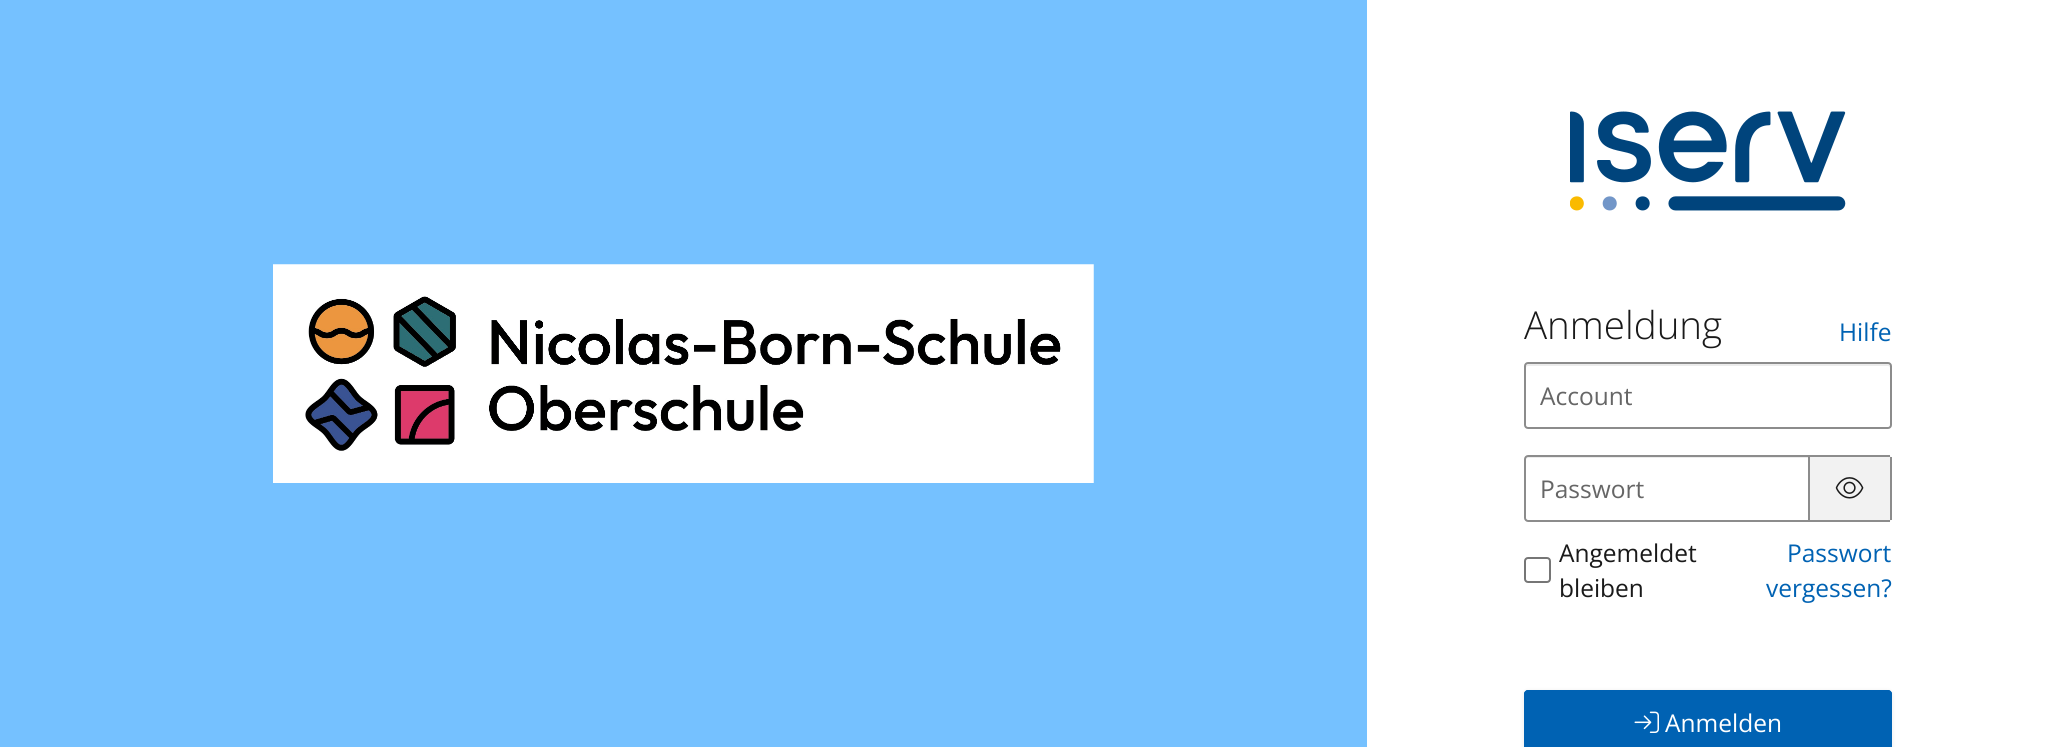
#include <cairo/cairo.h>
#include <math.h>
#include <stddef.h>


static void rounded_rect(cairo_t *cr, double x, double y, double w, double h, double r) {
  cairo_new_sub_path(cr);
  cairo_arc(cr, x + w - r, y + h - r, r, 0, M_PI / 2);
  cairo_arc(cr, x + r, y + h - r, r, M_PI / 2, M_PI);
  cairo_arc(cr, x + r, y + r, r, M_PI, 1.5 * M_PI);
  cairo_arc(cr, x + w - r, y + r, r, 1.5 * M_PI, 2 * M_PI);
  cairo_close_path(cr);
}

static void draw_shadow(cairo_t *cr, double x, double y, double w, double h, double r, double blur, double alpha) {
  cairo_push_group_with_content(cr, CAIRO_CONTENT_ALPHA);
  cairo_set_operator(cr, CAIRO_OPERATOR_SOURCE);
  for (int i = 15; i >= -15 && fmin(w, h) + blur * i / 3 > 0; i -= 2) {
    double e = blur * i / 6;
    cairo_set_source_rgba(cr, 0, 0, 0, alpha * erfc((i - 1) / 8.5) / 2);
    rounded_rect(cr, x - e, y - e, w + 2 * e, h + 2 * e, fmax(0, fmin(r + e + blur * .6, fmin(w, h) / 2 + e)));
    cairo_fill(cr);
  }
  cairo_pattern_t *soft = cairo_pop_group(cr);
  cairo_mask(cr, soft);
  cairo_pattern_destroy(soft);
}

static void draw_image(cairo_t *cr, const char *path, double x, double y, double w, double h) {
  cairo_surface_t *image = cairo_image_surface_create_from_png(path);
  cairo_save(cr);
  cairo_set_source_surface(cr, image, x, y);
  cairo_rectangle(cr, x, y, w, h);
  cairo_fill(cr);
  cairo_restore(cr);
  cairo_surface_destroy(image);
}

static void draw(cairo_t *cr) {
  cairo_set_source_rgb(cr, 1, 1, 1);
  cairo_paint(cr);
  cairo_set_source_rgb(cr, 117 / 255.0, 193 / 255.0, 1);
  cairo_rectangle(cr, 0, 0, 1367, 747);
  cairo_fill(cr);
  draw_image(cr, "images/1.png", 273, 264, 821, 219);
  draw_image(cr, "images/2.png", 1570, 111, 276, 100);
  cairo_set_source_rgb(cr, 236 / 255.0, 236 / 255.0, 236 / 255.0);
  cairo_new_path(cr);
  cairo_move_to(cr, 1528, 366);
  cairo_line_to(cr, 1888, 366);
  cairo_curve_to(cr, 1889, 366, 1890, 367, 1890, 368);
  cairo_line_to(cr, 1890, 366);
  cairo_curve_to(cr, 1890, 365, 1889, 364, 1888, 364);
  cairo_line_to(cr, 1528, 364);
  cairo_curve_to(cr, 1527, 364, 1526, 365, 1526, 366);
  cairo_line_to(cr, 1526, 368);
  cairo_curve_to(cr, 1526, 367, 1527, 366, 1528, 366);
  cairo_close_path(cr);
  cairo_fill(cr);
  rounded_rect(cr, 1525, 363, 366, 65, 3);
  cairo_set_source_rgb(cr, 140 / 255.0, 140 / 255.0, 140 / 255.0);
  cairo_stroke(cr);
  cairo_set_source_rgb(cr, 236 / 255.0, 236 / 255.0, 236 / 255.0);
  cairo_new_path(cr);
  cairo_move_to(cr, 1528, 458);
  cairo_line_to(cr, 1808, 458);
  cairo_line_to(cr, 1808, 457);
  cairo_line_to(cr, 1528, 457);
  cairo_curve_to(cr, 1526, 457, 1526, 459, 1526, 460);
  cairo_curve_to(cr, 1526, 459, 1527, 458, 1528, 458);
  cairo_close_path(cr);
  cairo_fill(cr);
  cairo_new_path(cr);
  cairo_move_to(cr, 1528, 456);
  cairo_line_to(cr, 1809, 456);
  cairo_line_to(cr, 1809, 521);
  cairo_line_to(cr, 1528, 521);
  cairo_curve_to(cr, 1526.5, 521, 1525, 519.5, 1525, 518);
  cairo_line_to(cr, 1525, 459);
  cairo_curve_to(cr, 1525, 457.5, 1526.5, 456, 1528, 456);
  cairo_close_path(cr);
  cairo_set_source_rgb(cr, 140 / 255.0, 140 / 255.0, 140 / 255.0);
  cairo_stroke(cr);
  cairo_set_source_rgb(cr, 242 / 255.0, 242 / 255.0, 242 / 255.0);
  cairo_new_path(cr);
  cairo_move_to(cr, 1810, 455);
  cairo_line_to(cr, 1888, 455);
  cairo_curve_to(cr, 1890, 455, 1892, 457, 1892, 459);
  cairo_line_to(cr, 1892, 518);
  cairo_curve_to(cr, 1892, 520, 1890, 522, 1888, 522);
  cairo_line_to(cr, 1810, 522);
  cairo_close_path(cr);
  cairo_fill(cr);
  cairo_set_source_rgb(cr, 140 / 255.0, 140 / 255.0, 140 / 255.0);
  cairo_rectangle(cr, 1810, 455, 80, 2);
  cairo_fill(cr);
  cairo_rectangle(cr, 1890, 457, 2, 63);
  cairo_fill(cr);
  cairo_rectangle(cr, 1810, 520, 80, 2);
  cairo_fill(cr);
  draw_image(cr, "images/3.png", 1835, 477, 29, 22);
  rounded_rect(cr, 1525, 558, 25, 24, 3);
  cairo_set_source_rgb(cr, 118 / 255.0, 118 / 255.0, 118 / 255.0);
  cairo_stroke(cr);
  cairo_set_source_rgb(cr, 0, 0, 0);
  draw_shadow(cr, 1524, 691, 368, 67, 4, 2.5, 0.08);
  cairo_set_source_rgb(cr, 0, 98 / 255.0, 179 / 255.0);
  cairo_new_path(cr);
  cairo_move_to(cr, 1528, 690);
  cairo_line_to(cr, 1888, 690);
  cairo_curve_to(cr, 1890, 690, 1892, 692, 1892, 694);
  cairo_line_to(cr, 1892, 747);
  cairo_line_to(cr, 1524, 747);
  cairo_line_to(cr, 1524, 694);
  cairo_curve_to(cr, 1524, 692, 1526, 690, 1528, 690);
  cairo_close_path(cr);
  cairo_fill(cr);
  rounded_rect(cr, 1525, 691, 366, 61, 3);
  cairo_stroke(cr);
  draw_image(cr, "images/4.png", 1634, 711, 25, 22);
  cairo_select_font_face(cr, "Open Sans Light", CAIRO_FONT_SLANT_NORMAL, CAIRO_FONT_WEIGHT_NORMAL);
  cairo_set_font_size(cr, 38.5);
  cairo_set_source_rgb(cr, 26 / 255.0, 26 / 255.0, 26 / 255.0);
  cairo_move_to(cr, 1524, 339);
  cairo_show_text(cr, "Anmeldung");
  cairo_select_font_face(cr, "Open Sans", CAIRO_FONT_SLANT_NORMAL, CAIRO_FONT_WEIGHT_NORMAL);
  cairo_set_font_size(cr, 24.5);
  cairo_set_source_rgb(cr, 0, 98 / 255.0, 179 / 255.0);
  cairo_move_to(cr, 1839, 341);
  cairo_show_text(cr, "Hilfe");
  cairo_set_source_rgb(cr, 102 / 255.0, 102 / 255.0, 102 / 255.0);
  cairo_move_to(cr, 1540, 405);
  cairo_show_text(cr, "Account");
  cairo_move_to(cr, 1540, 498);
  cairo_show_text(cr, "Passwort");
  cairo_set_source_rgb(cr, 26 / 255.0, 26 / 255.0, 26 / 255.0);
  cairo_move_to(cr, 1559, 562);
  cairo_show_text(cr, "Angemeldet");
  cairo_move_to(cr, 1559, 597);
  cairo_show_text(cr, "bleiben");
  cairo_set_source_rgb(cr, 0, 98 / 255.0, 179 / 255.0);
  cairo_move_to(cr, 1787, 562);
  cairo_show_text(cr, "Passwort");
  cairo_move_to(cr, 1766, 597);
  cairo_show_text(cr, "vergessen?");
  cairo_set_source_rgb(cr, 1, 1, 1);
  cairo_move_to(cr, 1665, 732);
  cairo_show_text(cr, "Anmelden");
}

int main(void) {
  cairo_surface_t *surface = cairo_image_surface_create(CAIRO_FORMAT_RGB24, 2049, 747);
  cairo_t *cr = cairo_create(surface);
  cairo_font_options_t *options = cairo_font_options_create();
  cairo_font_options_set_hint_metrics(options, CAIRO_HINT_METRICS_OFF);
  cairo_font_options_set_hint_style(options, CAIRO_HINT_STYLE_NONE);
  cairo_set_font_options(cr, options);
  cairo_set_miter_limit(cr, 4);
  draw(cr);
  cairo_surface_write_to_png(surface, "out.png");
  cairo_font_options_destroy(options);
  cairo_destroy(cr);
  cairo_surface_destroy(surface);
  return 0;
}
